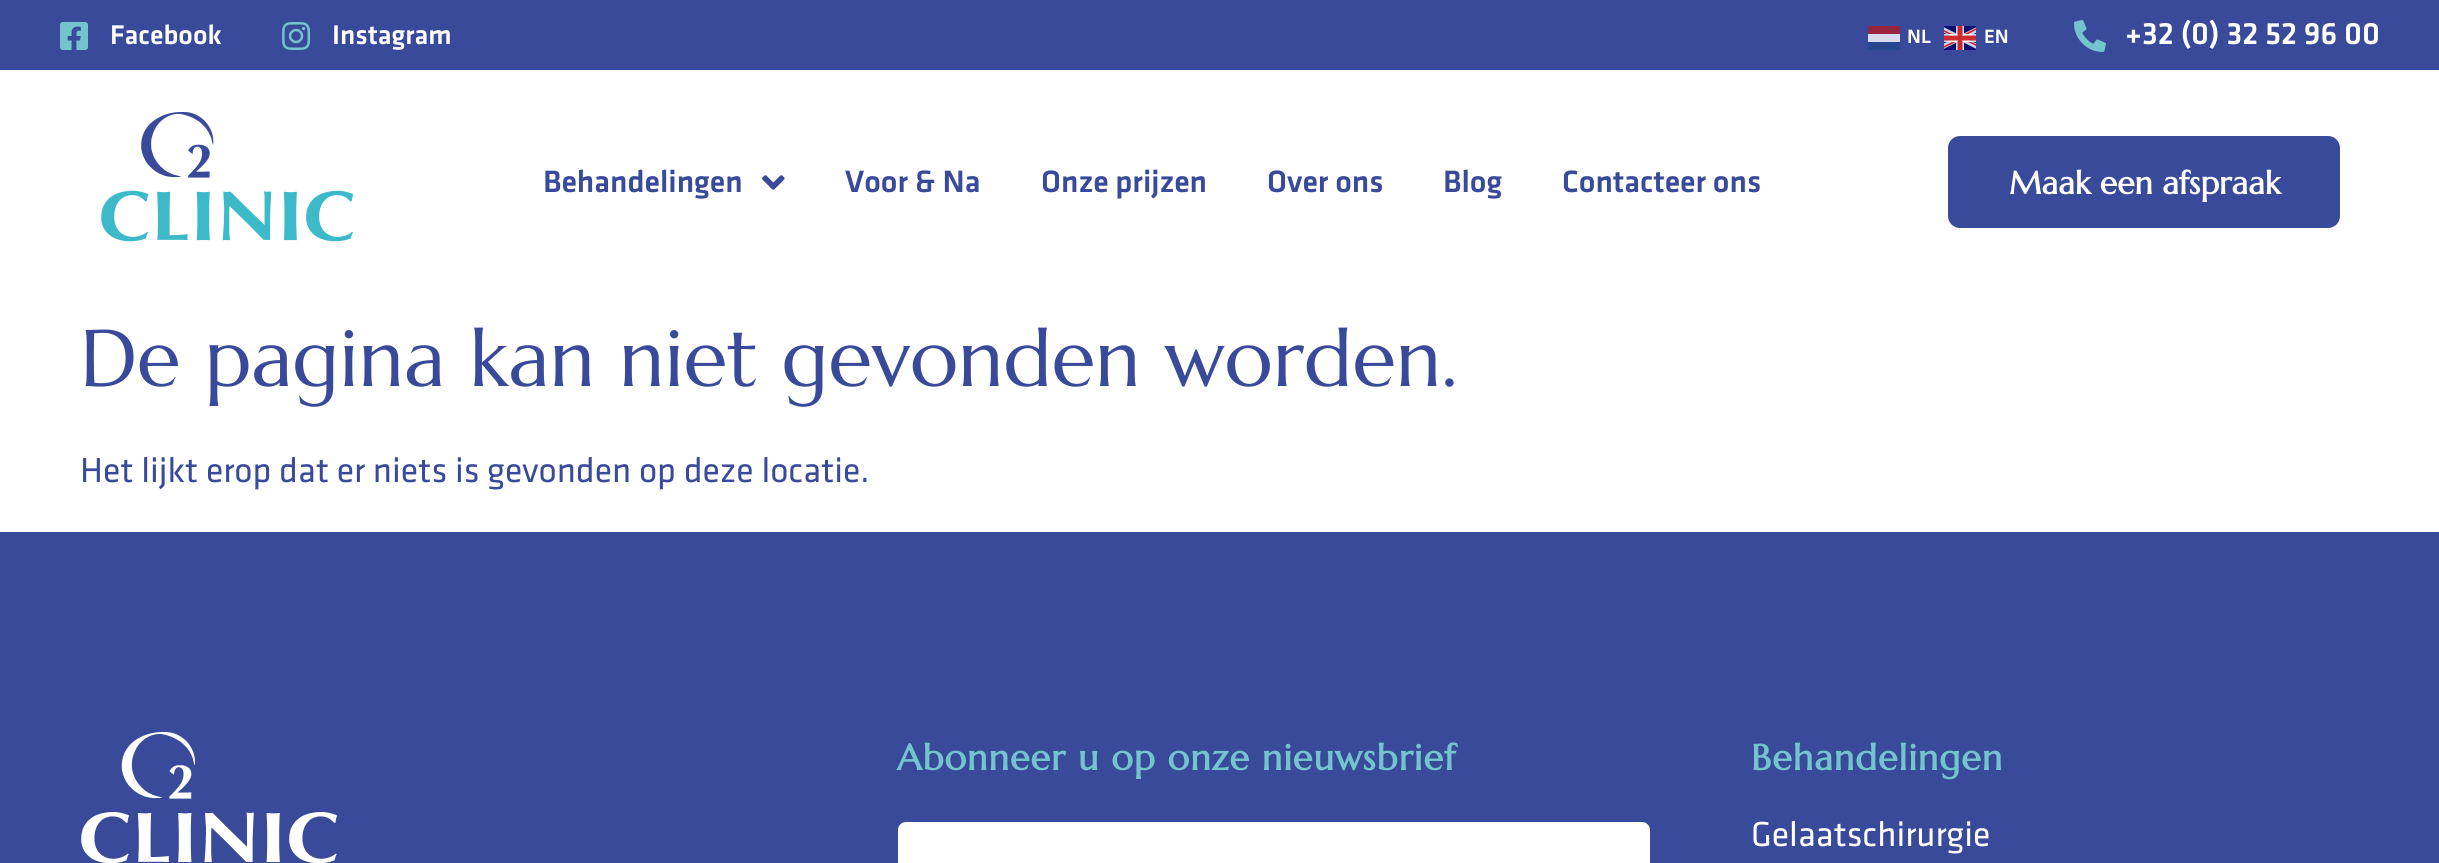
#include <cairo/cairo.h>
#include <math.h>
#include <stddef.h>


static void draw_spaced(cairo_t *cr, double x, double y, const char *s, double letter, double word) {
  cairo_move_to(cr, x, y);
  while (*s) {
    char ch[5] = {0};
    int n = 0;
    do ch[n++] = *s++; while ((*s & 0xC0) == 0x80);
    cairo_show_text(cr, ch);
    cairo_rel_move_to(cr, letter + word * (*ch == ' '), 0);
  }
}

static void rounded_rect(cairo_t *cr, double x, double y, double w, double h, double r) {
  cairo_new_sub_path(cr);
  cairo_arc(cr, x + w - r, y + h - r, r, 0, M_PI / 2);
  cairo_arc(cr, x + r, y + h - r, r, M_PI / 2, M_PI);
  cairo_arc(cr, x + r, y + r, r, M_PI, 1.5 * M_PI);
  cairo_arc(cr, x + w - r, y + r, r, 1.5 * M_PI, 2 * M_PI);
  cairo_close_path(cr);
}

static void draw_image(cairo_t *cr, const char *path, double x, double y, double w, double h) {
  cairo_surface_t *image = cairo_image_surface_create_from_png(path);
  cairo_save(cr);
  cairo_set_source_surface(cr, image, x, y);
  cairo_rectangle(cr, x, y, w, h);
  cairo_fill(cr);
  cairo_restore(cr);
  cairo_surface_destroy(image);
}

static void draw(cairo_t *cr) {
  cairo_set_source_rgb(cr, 1, 1, 1);
  cairo_paint(cr);
  cairo_set_source_rgb(cr, 57 / 255.0, 74 / 255.0, 154 / 255.0);
  cairo_rectangle(cr, 0, 0, 2439, 70);
  cairo_fill(cr);
  draw_image(cr, "images/1.png", 60, 22, 28, 28);
  draw_image(cr, "images/2.png", 282, 22, 29, 28);
  cairo_set_source_rgb(cr, 215 / 255.0, 219 / 255.0, 235 / 255.0);
  cairo_rectangle(cr, 1868, 34, 32, 8);
  cairo_fill(cr);
  cairo_set_source_rgb(cr, 38 / 255.0, 71 / 255.0, 142 / 255.0);
  cairo_rectangle(cr, 1868, 42, 32, 8);
  cairo_fill(cr);
  cairo_set_source_rgb(cr, 151 / 255.0, 37 / 255.0, 63 / 255.0);
  cairo_rectangle(cr, 1868, 26, 32, 8);
  cairo_fill(cr);
  draw_image(cr, "images/3.png", 1944, 26, 32, 24);
  draw_image(cr, "images/4.png", 2074, 20, 32, 32);
  draw_image(cr, "images/5.png", 101, 112, 253, 130);
  draw_image(cr, "images/6.png", 762, 175, 23, 15);
  cairo_set_source_rgb(cr, 57 / 255.0, 74 / 255.0, 154 / 255.0);
  rounded_rect(cr, 1948, 136, 392, 92, 12);
  cairo_fill(cr);
  cairo_rectangle(cr, 0, 532, 2439, 331);
  cairo_fill(cr);
  draw_image(cr, "images/7.png", 81, 732, 257, 131);
  cairo_set_source_rgb(cr, 1, 1, 1);
  rounded_rect(cr, 898, 822, 752, 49, 8);
  cairo_fill(cr);
  cairo_select_font_face(cr, "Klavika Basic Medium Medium", CAIRO_FONT_SLANT_NORMAL, CAIRO_FONT_WEIGHT_NORMAL);
  cairo_set_font_size(cr, 28);
  cairo_move_to(cr, 110, 44);
  cairo_show_text(cr, "Facebook");
  cairo_move_to(cr, 332, 44);
  cairo_show_text(cr, "Instagram");
  cairo_set_font_size(cr, 20);
  cairo_move_to(cr, 1907, 43);
  cairo_show_text(cr, "NL");
  cairo_move_to(cr, 1984, 43);
  cairo_show_text(cr, "EN");
  cairo_set_font_size(cr, 32);
  cairo_move_to(cr, 2125, 44);
  cairo_show_text(cr, "+32 (0) 32 52 96 00");
  cairo_set_source_rgb(cr, 57 / 255.0, 74 / 255.0, 154 / 255.0);
  cairo_move_to(cr, 543, 192);
  cairo_show_text(cr, "Behandelingen");
  cairo_move_to(cr, 845, 192);
  cairo_show_text(cr, "Voor & Na");
  cairo_move_to(cr, 1041, 192);
  cairo_show_text(cr, "Onze prijzen");
  cairo_move_to(cr, 1267, 192);
  cairo_show_text(cr, "Over ons");
  cairo_move_to(cr, 1443, 192);
  cairo_show_text(cr, "Blog");
  cairo_move_to(cr, 1562, 192);
  cairo_show_text(cr, "Contacteer ons");
  cairo_select_font_face(cr, "Marcellus", CAIRO_FONT_SLANT_NORMAL, CAIRO_FONT_WEIGHT_BOLD);
  cairo_set_source_rgb(cr, 1, 1, 1);
  cairo_move_to(cr, 2009, 194);
  cairo_show_text(cr, "Maak een afspraak");
  cairo_select_font_face(cr, "Marcellus", CAIRO_FONT_SLANT_NORMAL, CAIRO_FONT_WEIGHT_NORMAL);
  cairo_set_font_size(cr, 80);
  cairo_set_source_rgb(cr, 57 / 255.0, 74 / 255.0, 154 / 255.0);
  cairo_move_to(cr, 80, 386);
  cairo_show_text(cr, "De pagina kan niet gevonden worden.");
  cairo_select_font_face(cr, "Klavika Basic", CAIRO_FONT_SLANT_NORMAL, CAIRO_FONT_WEIGHT_NORMAL);
  cairo_set_font_size(cr, 36);
  cairo_move_to(cr, 80, 482);
  cairo_show_text(cr, "Het lijkt erop dat er niets is gevonden op deze locatie.");
  cairo_select_font_face(cr, "Marcellus", CAIRO_FONT_SLANT_NORMAL, CAIRO_FONT_WEIGHT_BOLD);
  cairo_set_source_rgb(cr, 116 / 255.0, 196 / 255.0, 206 / 255.0);
  draw_spaced(cr, 897, 770, "Abonneer u op onze nieuwsbrief", 1, 0);
  draw_spaced(cr, 1751, 770, "Behandelingen", 1, 0);
  cairo_select_font_face(cr, "Klavika Basic", CAIRO_FONT_SLANT_NORMAL, CAIRO_FONT_WEIGHT_NORMAL);
  cairo_set_source_rgb(cr, 1, 1, 1);
  cairo_move_to(cr, 1751, 846);
  cairo_show_text(cr, "Gelaatschirurgie");
}

int main(void) {
  cairo_surface_t *surface = cairo_image_surface_create(CAIRO_FORMAT_RGB24, 2439, 863);
  cairo_t *cr = cairo_create(surface);
  cairo_font_options_t *options = cairo_font_options_create();
  cairo_font_options_set_hint_metrics(options, CAIRO_HINT_METRICS_OFF);
  cairo_font_options_set_hint_style(options, CAIRO_HINT_STYLE_NONE);
  cairo_set_font_options(cr, options);
  cairo_set_miter_limit(cr, 4);
  draw(cr);
  cairo_surface_write_to_png(surface, "out.png");
  cairo_font_options_destroy(options);
  cairo_destroy(cr);
  cairo_surface_destroy(surface);
  return 0;
}
